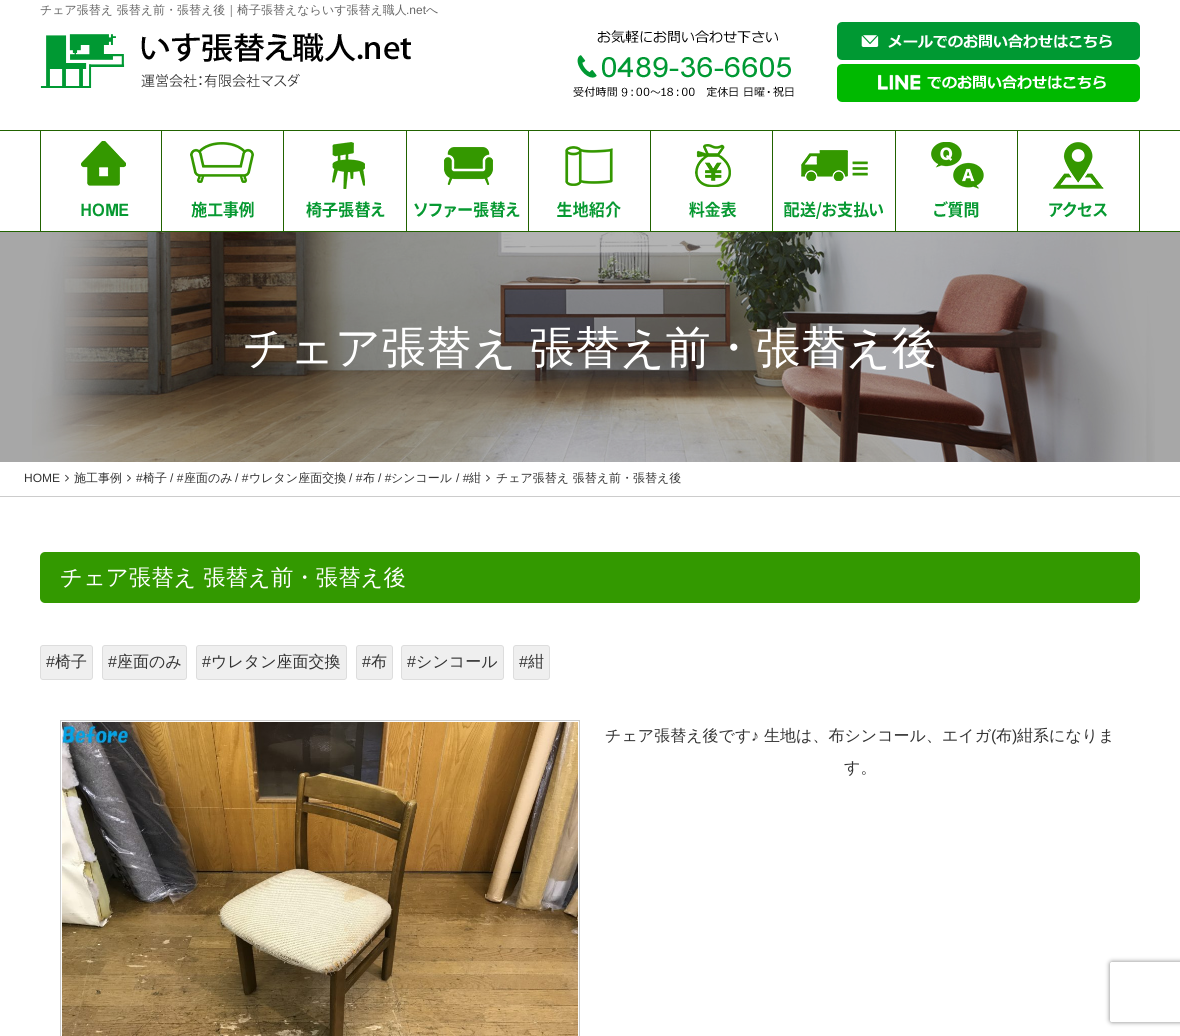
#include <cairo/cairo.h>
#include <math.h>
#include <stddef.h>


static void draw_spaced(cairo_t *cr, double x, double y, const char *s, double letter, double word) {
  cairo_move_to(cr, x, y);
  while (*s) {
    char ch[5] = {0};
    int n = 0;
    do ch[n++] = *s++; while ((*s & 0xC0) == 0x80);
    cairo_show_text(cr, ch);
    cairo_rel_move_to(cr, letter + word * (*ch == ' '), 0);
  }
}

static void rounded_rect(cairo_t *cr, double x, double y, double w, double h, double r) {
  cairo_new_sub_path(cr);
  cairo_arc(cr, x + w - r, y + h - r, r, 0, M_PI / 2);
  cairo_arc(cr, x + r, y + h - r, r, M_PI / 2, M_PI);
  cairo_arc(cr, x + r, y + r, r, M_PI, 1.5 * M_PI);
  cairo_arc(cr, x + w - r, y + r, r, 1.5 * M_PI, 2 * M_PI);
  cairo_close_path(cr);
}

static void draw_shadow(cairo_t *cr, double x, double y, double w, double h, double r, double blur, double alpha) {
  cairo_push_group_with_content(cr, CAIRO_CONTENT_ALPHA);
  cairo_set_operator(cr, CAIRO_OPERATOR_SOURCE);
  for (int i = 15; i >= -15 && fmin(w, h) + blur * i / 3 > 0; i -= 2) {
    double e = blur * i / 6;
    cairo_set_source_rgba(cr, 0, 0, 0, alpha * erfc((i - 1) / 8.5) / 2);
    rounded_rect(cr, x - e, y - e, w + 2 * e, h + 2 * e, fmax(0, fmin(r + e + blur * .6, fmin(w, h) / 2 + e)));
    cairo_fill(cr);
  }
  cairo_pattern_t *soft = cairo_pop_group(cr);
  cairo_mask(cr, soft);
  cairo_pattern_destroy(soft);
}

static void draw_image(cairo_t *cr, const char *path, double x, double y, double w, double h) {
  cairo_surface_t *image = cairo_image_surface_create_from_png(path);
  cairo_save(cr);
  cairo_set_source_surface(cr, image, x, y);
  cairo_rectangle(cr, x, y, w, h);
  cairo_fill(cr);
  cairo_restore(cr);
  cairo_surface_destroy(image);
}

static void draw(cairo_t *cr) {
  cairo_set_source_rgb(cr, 1, 1, 1);
  cairo_paint(cr);
  draw_image(cr, "images/1.png", 40, 33, 371, 55);
  draw_image(cr, "images/2.png", 573, 30, 221, 67);
  draw_image(cr, "images/3.png", 837, 22, 303, 38);
  draw_image(cr, "images/4.png", 837, 64, 303, 38);
  cairo_set_source_rgb(cr, 33 / 255.0, 98 / 255.0, 0);
  cairo_rectangle(cr, 0, 130, 1180, 1);
  cairo_fill(cr);
  cairo_rectangle(cr, 0, 231, 1180, 1);
  cairo_fill(cr);
  cairo_rectangle(cr, 161, 131, 1, 100);
  cairo_fill(cr);
  cairo_rectangle(cr, 40, 131, 1, 100);
  cairo_fill(cr);
  draw_image(cr, "images/5.png", 81, 141, 48, 76);
  cairo_rectangle(cr, 283, 131, 1, 100);
  cairo_fill(cr);
  draw_image(cr, "images/6.png", 190, 142, 64, 76);
  cairo_rectangle(cr, 406, 131, 1, 100);
  cairo_fill(cr);
  draw_image(cr, "images/7.png", 306, 142, 79, 76);
  cairo_rectangle(cr, 528, 131, 1, 100);
  cairo_fill(cr);
  draw_image(cr, "images/8.png", 414, 147, 106, 71);
  cairo_rectangle(cr, 650, 131, 1, 100);
  cairo_fill(cr);
  draw_image(cr, "images/9.png", 557, 146, 64, 72);
  cairo_rectangle(cr, 772, 131, 1, 100);
  cairo_fill(cr);
  draw_image(cr, "images/10.png", 689, 144, 48, 74);
  cairo_rectangle(cr, 895, 131, 1, 100);
  cairo_fill(cr);
  draw_image(cr, "images/11.png", 784, 150, 99, 69);
  cairo_rectangle(cr, 1017, 131, 1, 100);
  cairo_fill(cr);
  draw_image(cr, "images/12.png", 931, 142, 53, 76);
  cairo_rectangle(cr, 1139, 131, 1, 100);
  cairo_fill(cr);
  draw_image(cr, "images/13.png", 1049, 142, 58, 76);
  cairo_set_source_rgb(cr, 167 / 255.0, 167 / 255.0, 167 / 255.0);
  cairo_rectangle(cr, 0, 232, 1180, 230);
  cairo_fill(cr);
  draw_image(cr, "images/14.png", 32, 232, 1123, 230);
  cairo_set_source_rgb(cr, 204 / 255.0, 204 / 255.0, 204 / 255.0);
  cairo_rectangle(cr, 0, 496, 1180, 1);
  cairo_fill(cr);
  draw_image(cr, "images/15.png", 65, 474, 4, 8);
  draw_image(cr, "images/15.png", 127, 474, 4, 8);
  draw_image(cr, "images/15.png", 486, 474, 4, 8);
  cairo_set_source_rgb(cr, 51 / 255.0, 153 / 255.0, 0);
  rounded_rect(cr, 40, 552, 1100, 51, 5);
  cairo_fill(cr);
  cairo_set_source_rgb(cr, 239 / 255.0, 239 / 255.0, 239 / 255.0);
  rounded_rect(cr, 40.5, 645.5, 52, 34, 2.5);
  cairo_fill_preserve(cr);
  cairo_set_source_rgb(cr, 221 / 255.0, 221 / 255.0, 221 / 255.0);
  cairo_set_line_width(cr, 1);
  cairo_stroke(cr);
  cairo_set_source_rgb(cr, 239 / 255.0, 239 / 255.0, 239 / 255.0);
  rounded_rect(cr, 102.5, 645.5, 84, 34, 2.5);
  cairo_fill_preserve(cr);
  cairo_set_source_rgb(cr, 221 / 255.0, 221 / 255.0, 221 / 255.0);
  cairo_stroke(cr);
  cairo_set_source_rgb(cr, 239 / 255.0, 239 / 255.0, 239 / 255.0);
  rounded_rect(cr, 196.5, 645.5, 150, 34, 2.5);
  cairo_fill_preserve(cr);
  cairo_set_source_rgb(cr, 221 / 255.0, 221 / 255.0, 221 / 255.0);
  cairo_stroke(cr);
  cairo_set_source_rgb(cr, 239 / 255.0, 239 / 255.0, 239 / 255.0);
  rounded_rect(cr, 356.5, 645.5, 36, 34, 2.5);
  cairo_fill_preserve(cr);
  cairo_set_source_rgb(cr, 221 / 255.0, 221 / 255.0, 221 / 255.0);
  cairo_stroke(cr);
  cairo_set_source_rgb(cr, 239 / 255.0, 239 / 255.0, 239 / 255.0);
  rounded_rect(cr, 401.5, 645.5, 102, 34, 2.5);
  cairo_fill_preserve(cr);
  cairo_set_source_rgb(cr, 221 / 255.0, 221 / 255.0, 221 / 255.0);
  cairo_stroke(cr);
  cairo_set_source_rgb(cr, 239 / 255.0, 239 / 255.0, 239 / 255.0);
  rounded_rect(cr, 513.5, 645.5, 36, 34, 2.5);
  cairo_fill_preserve(cr);
  cairo_set_source_rgb(cr, 221 / 255.0, 221 / 255.0, 221 / 255.0);
  cairo_stroke(cr);
  cairo_rectangle(cr, 60.5, 720.5, 519, 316);
  cairo_set_source_rgb(cr, 204 / 255.0, 204 / 255.0, 204 / 255.0);
  cairo_stroke(cr);
  draw_image(cr, "images/16.png", 62, 722, 516, 314);
  cairo_save(cr);
  cairo_set_fill_rule(cr, CAIRO_FILL_RULE_EVEN_ODD);
  cairo_new_path(cr);
  cairo_move_to(cr, 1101, 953);
  cairo_line_to(cr, 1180, 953);
  cairo_line_to(cr, 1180, 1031);
  cairo_line_to(cr, 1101, 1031);
  cairo_close_path(cr);
  cairo_move_to(cr, 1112, 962);
  cairo_line_to(cr, 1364, 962);
  cairo_curve_to(cr, 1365, 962, 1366, 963, 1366, 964);
  cairo_line_to(cr, 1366, 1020);
  cairo_curve_to(cr, 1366, 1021, 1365, 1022, 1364, 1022);
  cairo_line_to(cr, 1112, 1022);
  cairo_curve_to(cr, 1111, 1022, 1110, 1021, 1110, 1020);
  cairo_line_to(cr, 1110, 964);
  cairo_curve_to(cr, 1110, 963, 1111, 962, 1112, 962);
  cairo_close_path(cr);
  cairo_clip(cr);
  cairo_set_source_rgb(cr, 128 / 255.0, 128 / 255.0, 128 / 255.0);
  draw_shadow(cr, 1110, 962, 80, 60, 2, 2.5, 1);
  cairo_restore(cr);
  cairo_select_font_face(cr, "WenQuanYi Zen Hei Medium", CAIRO_FONT_SLANT_NORMAL, CAIRO_FONT_WEIGHT_NORMAL);
  cairo_set_font_size(cr, 12);
  cairo_set_source_rgb(cr, 102 / 255.0, 102 / 255.0, 102 / 255.0);
  cairo_move_to(cr, 40, 14);
  cairo_show_text(cr, "チェア張替え 張替え前・張替え後｜椅子張替えならいす張替え職人");
  cairo_select_font_face(cr, "Liberation Sans", CAIRO_FONT_SLANT_NORMAL, CAIRO_FONT_WEIGHT_NORMAL);
  cairo_move_to(cr, 406, 14);
  cairo_show_text(cr, ".net");
  cairo_select_font_face(cr, "WenQuanYi Zen Hei Medium", CAIRO_FONT_SLANT_NORMAL, CAIRO_FONT_WEIGHT_NORMAL);
  cairo_move_to(cr, 426, 14);
  cairo_show_text(cr, "へ");
  cairo_set_font_size(cr, 45);
  cairo_set_source_rgb(cr, 1, 1, 1);
  draw_spaced(cr, 243, 363, "チェア張替え 張替え前・張替え後", 0, -1);
  cairo_select_font_face(cr, "Liberation Sans", CAIRO_FONT_SLANT_NORMAL, CAIRO_FONT_WEIGHT_NORMAL);
  cairo_set_font_size(cr, 12);
  cairo_set_source_rgb(cr, 51 / 255.0, 51 / 255.0, 51 / 255.0);
  cairo_move_to(cr, 24, 482);
  cairo_show_text(cr, "HOME");
  cairo_select_font_face(cr, "WenQuanYi Zen Hei Medium", CAIRO_FONT_SLANT_NORMAL, CAIRO_FONT_WEIGHT_NORMAL);
  cairo_move_to(cr, 74, 482);
  cairo_show_text(cr, "施工事例");
  cairo_select_font_face(cr, "Liberation Sans", CAIRO_FONT_SLANT_NORMAL, CAIRO_FONT_WEIGHT_NORMAL);
  cairo_move_to(cr, 136, 482);
  cairo_show_text(cr, "#");
  cairo_select_font_face(cr, "WenQuanYi Zen Hei Medium", CAIRO_FONT_SLANT_NORMAL, CAIRO_FONT_WEIGHT_NORMAL);
  cairo_move_to(cr, 143, 482);
  cairo_show_text(cr, "椅子");
  cairo_select_font_face(cr, "Liberation Sans", CAIRO_FONT_SLANT_NORMAL, CAIRO_FONT_WEIGHT_NORMAL);
  cairo_move_to(cr, 170, 482);
  cairo_show_text(cr, "/ #");
  cairo_select_font_face(cr, "WenQuanYi Zen Hei Medium", CAIRO_FONT_SLANT_NORMAL, CAIRO_FONT_WEIGHT_NORMAL);
  cairo_move_to(cr, 184, 482);
  cairo_show_text(cr, "座面のみ");
  cairo_select_font_face(cr, "Liberation Sans", CAIRO_FONT_SLANT_NORMAL, CAIRO_FONT_WEIGHT_NORMAL);
  cairo_move_to(cr, 235, 482);
  cairo_show_text(cr, "/ #");
  cairo_select_font_face(cr, "WenQuanYi Zen Hei Medium", CAIRO_FONT_SLANT_NORMAL, CAIRO_FONT_WEIGHT_NORMAL);
  cairo_move_to(cr, 249, 482);
  cairo_show_text(cr, "ウレタン座面交換");
  cairo_select_font_face(cr, "Liberation Sans", CAIRO_FONT_SLANT_NORMAL, CAIRO_FONT_WEIGHT_NORMAL);
  cairo_move_to(cr, 349, 482);
  cairo_show_text(cr, "/ #");
  cairo_select_font_face(cr, "WenQuanYi Zen Hei Medium", CAIRO_FONT_SLANT_NORMAL, CAIRO_FONT_WEIGHT_NORMAL);
  cairo_move_to(cr, 363, 482);
  cairo_show_text(cr, "布");
  cairo_select_font_face(cr, "Liberation Sans", CAIRO_FONT_SLANT_NORMAL, CAIRO_FONT_WEIGHT_NORMAL);
  cairo_move_to(cr, 378, 482);
  cairo_show_text(cr, "/ #");
  cairo_select_font_face(cr, "WenQuanYi Zen Hei Medium", CAIRO_FONT_SLANT_NORMAL, CAIRO_FONT_WEIGHT_NORMAL);
  cairo_move_to(cr, 391, 482);
  cairo_show_text(cr, "シンコール");
  cairo_select_font_face(cr, "Liberation Sans", CAIRO_FONT_SLANT_NORMAL, CAIRO_FONT_WEIGHT_NORMAL);
  cairo_move_to(cr, 456, 482);
  cairo_show_text(cr, "/ #");
  cairo_select_font_face(cr, "WenQuanYi Zen Hei Medium", CAIRO_FONT_SLANT_NORMAL, CAIRO_FONT_WEIGHT_NORMAL);
  cairo_move_to(cr, 469, 482);
  cairo_show_text(cr, "紺");
  cairo_move_to(cr, 496, 482);
  cairo_show_text(cr, "チェア張替え 張替え前・張替え後");
  cairo_set_font_size(cr, 22.4);
  cairo_set_source_rgb(cr, 1, 1, 1);
  cairo_move_to(cr, 60, 585);
  cairo_show_text(cr, "チェア張替え 張替え前・張替え後");
  cairo_select_font_face(cr, "Liberation Sans", CAIRO_FONT_SLANT_NORMAL, CAIRO_FONT_WEIGHT_NORMAL);
  cairo_set_font_size(cr, 16);
  cairo_set_source_rgb(cr, 51 / 255.0, 51 / 255.0, 51 / 255.0);
  cairo_move_to(cr, 46, 667);
  cairo_show_text(cr, "#");
  cairo_select_font_face(cr, "WenQuanYi Zen Hei Medium", CAIRO_FONT_SLANT_NORMAL, CAIRO_FONT_WEIGHT_NORMAL);
  cairo_move_to(cr, 55, 667);
  cairo_show_text(cr, "椅子");
  cairo_select_font_face(cr, "Liberation Sans", CAIRO_FONT_SLANT_NORMAL, CAIRO_FONT_WEIGHT_NORMAL);
  cairo_move_to(cr, 108, 667);
  cairo_show_text(cr, "#");
  cairo_select_font_face(cr, "WenQuanYi Zen Hei Medium", CAIRO_FONT_SLANT_NORMAL, CAIRO_FONT_WEIGHT_NORMAL);
  cairo_move_to(cr, 117, 667);
  cairo_show_text(cr, "座面のみ");
  cairo_select_font_face(cr, "Liberation Sans", CAIRO_FONT_SLANT_NORMAL, CAIRO_FONT_WEIGHT_NORMAL);
  cairo_move_to(cr, 202, 667);
  cairo_show_text(cr, "#");
  cairo_select_font_face(cr, "WenQuanYi Zen Hei Medium", CAIRO_FONT_SLANT_NORMAL, CAIRO_FONT_WEIGHT_NORMAL);
  cairo_move_to(cr, 211, 667);
  cairo_show_text(cr, "ウレタン座面交換");
  cairo_select_font_face(cr, "Liberation Sans", CAIRO_FONT_SLANT_NORMAL, CAIRO_FONT_WEIGHT_NORMAL);
  cairo_move_to(cr, 362, 667);
  cairo_show_text(cr, "#");
  cairo_select_font_face(cr, "WenQuanYi Zen Hei Medium", CAIRO_FONT_SLANT_NORMAL, CAIRO_FONT_WEIGHT_NORMAL);
  cairo_move_to(cr, 371, 667);
  cairo_show_text(cr, "布");
  cairo_select_font_face(cr, "Liberation Sans", CAIRO_FONT_SLANT_NORMAL, CAIRO_FONT_WEIGHT_NORMAL);
  cairo_move_to(cr, 407, 667);
  cairo_show_text(cr, "#");
  cairo_select_font_face(cr, "WenQuanYi Zen Hei Medium", CAIRO_FONT_SLANT_NORMAL, CAIRO_FONT_WEIGHT_NORMAL);
  cairo_move_to(cr, 416, 667);
  cairo_show_text(cr, "シンコール");
  cairo_select_font_face(cr, "Liberation Sans", CAIRO_FONT_SLANT_NORMAL, CAIRO_FONT_WEIGHT_NORMAL);
  cairo_move_to(cr, 519, 667);
  cairo_show_text(cr, "#");
  cairo_select_font_face(cr, "WenQuanYi Zen Hei Medium", CAIRO_FONT_SLANT_NORMAL, CAIRO_FONT_WEIGHT_NORMAL);
  cairo_move_to(cr, 528, 667);
  cairo_show_text(cr, "紺");
  cairo_move_to(cr, 605, 741);
  cairo_show_text(cr, "チェア張替え後です");
  cairo_select_font_face(cr, "Liberation Sans", CAIRO_FONT_SLANT_NORMAL, CAIRO_FONT_WEIGHT_NORMAL);
  cairo_move_to(cr, 751, 741);
  cairo_show_text(cr, "♪");
  cairo_select_font_face(cr, "WenQuanYi Zen Hei Medium", CAIRO_FONT_SLANT_NORMAL, CAIRO_FONT_WEIGHT_NORMAL);
  cairo_move_to(cr, 764, 741);
  cairo_show_text(cr, "生地は、布シンコール、エイガ");
  cairo_select_font_face(cr, "Liberation Sans", CAIRO_FONT_SLANT_NORMAL, CAIRO_FONT_WEIGHT_NORMAL);
  cairo_move_to(cr, 991, 741);
  cairo_show_text(cr, "(");
  cairo_select_font_face(cr, "WenQuanYi Zen Hei Medium", CAIRO_FONT_SLANT_NORMAL, CAIRO_FONT_WEIGHT_NORMAL);
  cairo_move_to(cr, 996, 741);
  cairo_show_text(cr, "布");
  cairo_select_font_face(cr, "Liberation Sans", CAIRO_FONT_SLANT_NORMAL, CAIRO_FONT_WEIGHT_NORMAL);
  cairo_move_to(cr, 1012, 741);
  cairo_show_text(cr, ")");
  cairo_select_font_face(cr, "WenQuanYi Zen Hei Medium", CAIRO_FONT_SLANT_NORMAL, CAIRO_FONT_WEIGHT_NORMAL);
  cairo_move_to(cr, 1017, 741);
  cairo_show_text(cr, "紺系になりま");
  cairo_move_to(cr, 844, 773);
  cairo_show_text(cr, "す。");
}

int main(void) {
  cairo_surface_t *surface = cairo_image_surface_create(CAIRO_FORMAT_RGB24, 1180, 1036);
  cairo_t *cr = cairo_create(surface);
  cairo_font_options_t *options = cairo_font_options_create();
  cairo_font_options_set_hint_metrics(options, CAIRO_HINT_METRICS_OFF);
  cairo_font_options_set_hint_style(options, CAIRO_HINT_STYLE_NONE);
  cairo_set_font_options(cr, options);
  cairo_set_miter_limit(cr, 4);
  draw(cr);
  cairo_surface_write_to_png(surface, "out.png");
  cairo_font_options_destroy(options);
  cairo_destroy(cr);
  cairo_surface_destroy(surface);
  return 0;
}
